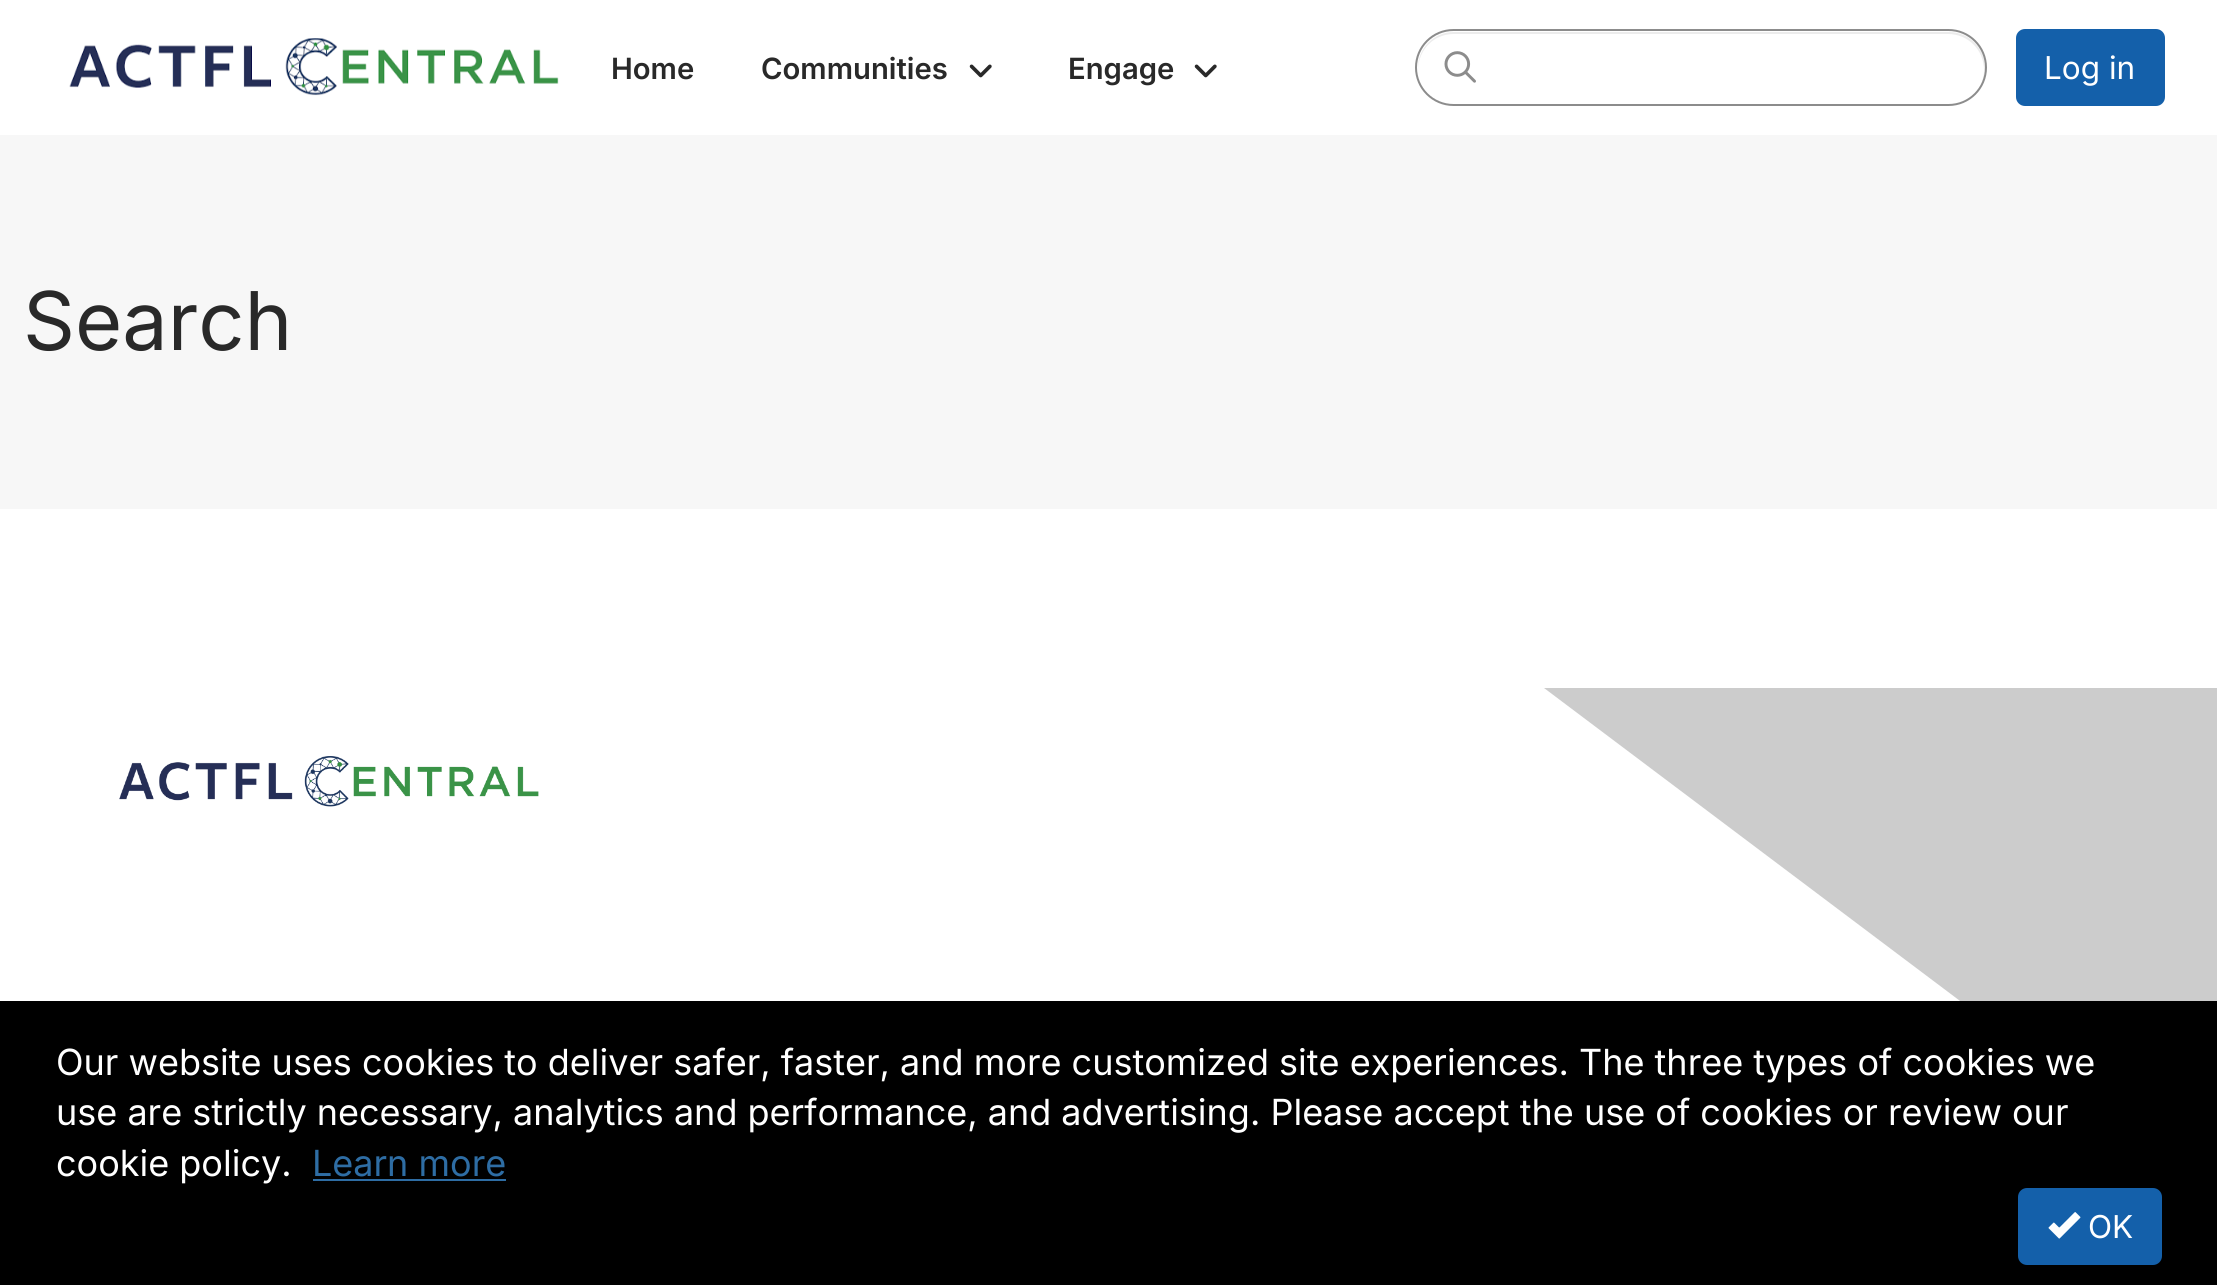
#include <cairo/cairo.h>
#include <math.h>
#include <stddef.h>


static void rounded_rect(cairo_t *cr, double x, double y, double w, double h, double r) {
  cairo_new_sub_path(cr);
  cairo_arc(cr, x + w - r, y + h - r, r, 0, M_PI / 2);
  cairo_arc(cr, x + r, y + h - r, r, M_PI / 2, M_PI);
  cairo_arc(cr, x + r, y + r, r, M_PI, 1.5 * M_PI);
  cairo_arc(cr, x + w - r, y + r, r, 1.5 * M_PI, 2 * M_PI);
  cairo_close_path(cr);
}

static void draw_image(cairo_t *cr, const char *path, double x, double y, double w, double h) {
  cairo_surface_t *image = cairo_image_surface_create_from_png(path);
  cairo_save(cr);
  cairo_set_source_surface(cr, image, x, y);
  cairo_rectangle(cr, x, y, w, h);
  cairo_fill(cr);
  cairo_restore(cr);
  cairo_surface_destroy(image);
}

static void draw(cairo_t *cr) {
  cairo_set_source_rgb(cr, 1, 1, 1);
  cairo_paint(cr);
  draw_image(cr, "images/1.png", 69, 38, 490, 58);
  draw_image(cr, "images/2.png", 969, 64, 23, 14);
  draw_image(cr, "images/2.png", 1194, 64, 23, 14);
  cairo_set_source_rgb(cr, 236 / 255.0, 236 / 255.0, 236 / 255.0);
  cairo_new_path(cr);
  cairo_move_to(cr, 1454, 34);
  cairo_line_to(cr, 1948, 34);
  cairo_curve_to(cr, 1968, 34, 1984, 50, 1984, 70);
  cairo_curve_to(cr, 1984, 75, 1983, 80, 1981, 85);
  cairo_curve_to(cr, 1984, 80, 1985, 74, 1985, 68);
  cairo_curve_to(cr, 1985, 48, 1969, 32, 1949, 32);
  cairo_line_to(cr, 1454, 32);
  cairo_curve_to(cr, 1434, 32, 1418, 48, 1418, 68);
  cairo_line_to(cr, 1418, 69);
  cairo_curve_to(cr, 1419, 49, 1434, 34, 1454, 34);
  cairo_close_path(cr);
  cairo_fill(cr);
  rounded_rect(cr, 1416, 30, 570, 75, 37.5);
  cairo_set_source_rgb(cr, 140 / 255.0, 140 / 255.0, 140 / 255.0);
  cairo_stroke(cr);
  draw_image(cr, "images/3.png", 1444, 51, 32, 32);
  cairo_set_source_rgb(cr, 20 / 255.0, 96 / 255.0, 170 / 255.0);
  rounded_rect(cr, 2017, 30, 147, 75, 8);
  cairo_fill_preserve(cr);
  cairo_stroke(cr);
  cairo_set_source_rgb(cr, 247 / 255.0, 247 / 255.0, 247 / 255.0);
  cairo_rectangle(cr, 0, 135, 2217, 374);
  cairo_fill(cr);
  draw_image(cr, "images/4.png", 119, 756, 420, 51);
  cairo_set_source_rgb(cr, 204 / 255.0, 204 / 255.0, 204 / 255.0);
  cairo_new_path(cr);
  cairo_move_to(cr, 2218, 688);
  cairo_line_to(cr, 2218, 1195);
  cairo_line_to(cr, 1544, 688);
  cairo_close_path(cr);
  cairo_fill(cr);
  cairo_set_source_rgb(cr, 0, 0, 0);
  cairo_rectangle(cr, 0, 1001, 2217, 284);
  cairo_fill(cr);
  cairo_set_source_rgb(cr, 46 / 255.0, 109 / 255.0, 164 / 255.0);
  cairo_rectangle(cr, 313, 1179, 193, 2);
  cairo_fill(cr);
  cairo_set_source_rgb(cr, 20 / 255.0, 96 / 255.0, 170 / 255.0);
  rounded_rect(cr, 2019, 1189, 142, 75, 8);
  cairo_fill_preserve(cr);
  cairo_stroke(cr);
  draw_image(cr, "images/5.png", 2048, 1212, 33, 27);
  cairo_select_font_face(cr, "Inter SemiBold", CAIRO_FONT_SLANT_NORMAL, CAIRO_FONT_WEIGHT_NORMAL);
  cairo_set_font_size(cr, 29.25);
  cairo_set_source_rgb(cr, 41 / 255.0, 41 / 255.0, 41 / 255.0);
  cairo_move_to(cr, 611, 79);
  cairo_show_text(cr, "Home");
  cairo_move_to(cr, 761, 79);
  cairo_show_text(cr, "Communities");
  cairo_move_to(cr, 1068, 79);
  cairo_show_text(cr, "Engage");
  cairo_select_font_face(cr, "Inter", CAIRO_FONT_SLANT_NORMAL, CAIRO_FONT_WEIGHT_NORMAL);
  cairo_set_font_size(cr, 31.5);
  cairo_set_source_rgb(cr, 1, 1, 1);
  cairo_move_to(cr, 2044, 79);
  cairo_show_text(cr, "Log in");
  cairo_set_font_size(cr, 81);
  cairo_set_source_rgb(cr, 41 / 255.0, 41 / 255.0, 41 / 255.0);
  cairo_move_to(cr, 23, 350);
  cairo_show_text(cr, "Search");
  cairo_set_font_size(cr, 36);
  cairo_set_source_rgb(cr, 1, 1, 1);
  cairo_move_to(cr, 56, 1075);
  cairo_show_text(cr, "Our website uses cookies to deliver safer, faster, and more customized site experiences. The three types of cookies we");
  cairo_move_to(cr, 56, 1125);
  cairo_show_text(cr, "use are strictly necessary, analytics and performance, and advertising. Please accept the use of cookies or review our");
  cairo_move_to(cr, 56, 1176);
  cairo_show_text(cr, "cookie policy.");
  cairo_set_source_rgb(cr, 46 / 255.0, 109 / 255.0, 164 / 255.0);
  cairo_move_to(cr, 312, 1176);
  cairo_show_text(cr, "Learn more");
  cairo_set_font_size(cr, 31.5);
  cairo_set_source_rgb(cr, 1, 1, 1);
  cairo_move_to(cr, 2088, 1238);
  cairo_show_text(cr, "OK");
}

int main(void) {
  cairo_surface_t *surface = cairo_image_surface_create(CAIRO_FORMAT_RGB24, 2217, 1285);
  cairo_t *cr = cairo_create(surface);
  cairo_font_options_t *options = cairo_font_options_create();
  cairo_font_options_set_hint_metrics(options, CAIRO_HINT_METRICS_OFF);
  cairo_font_options_set_hint_style(options, CAIRO_HINT_STYLE_NONE);
  cairo_set_font_options(cr, options);
  cairo_set_miter_limit(cr, 4);
  draw(cr);
  cairo_surface_write_to_png(surface, "out.png");
  cairo_font_options_destroy(options);
  cairo_destroy(cr);
  cairo_surface_destroy(surface);
  return 0;
}
